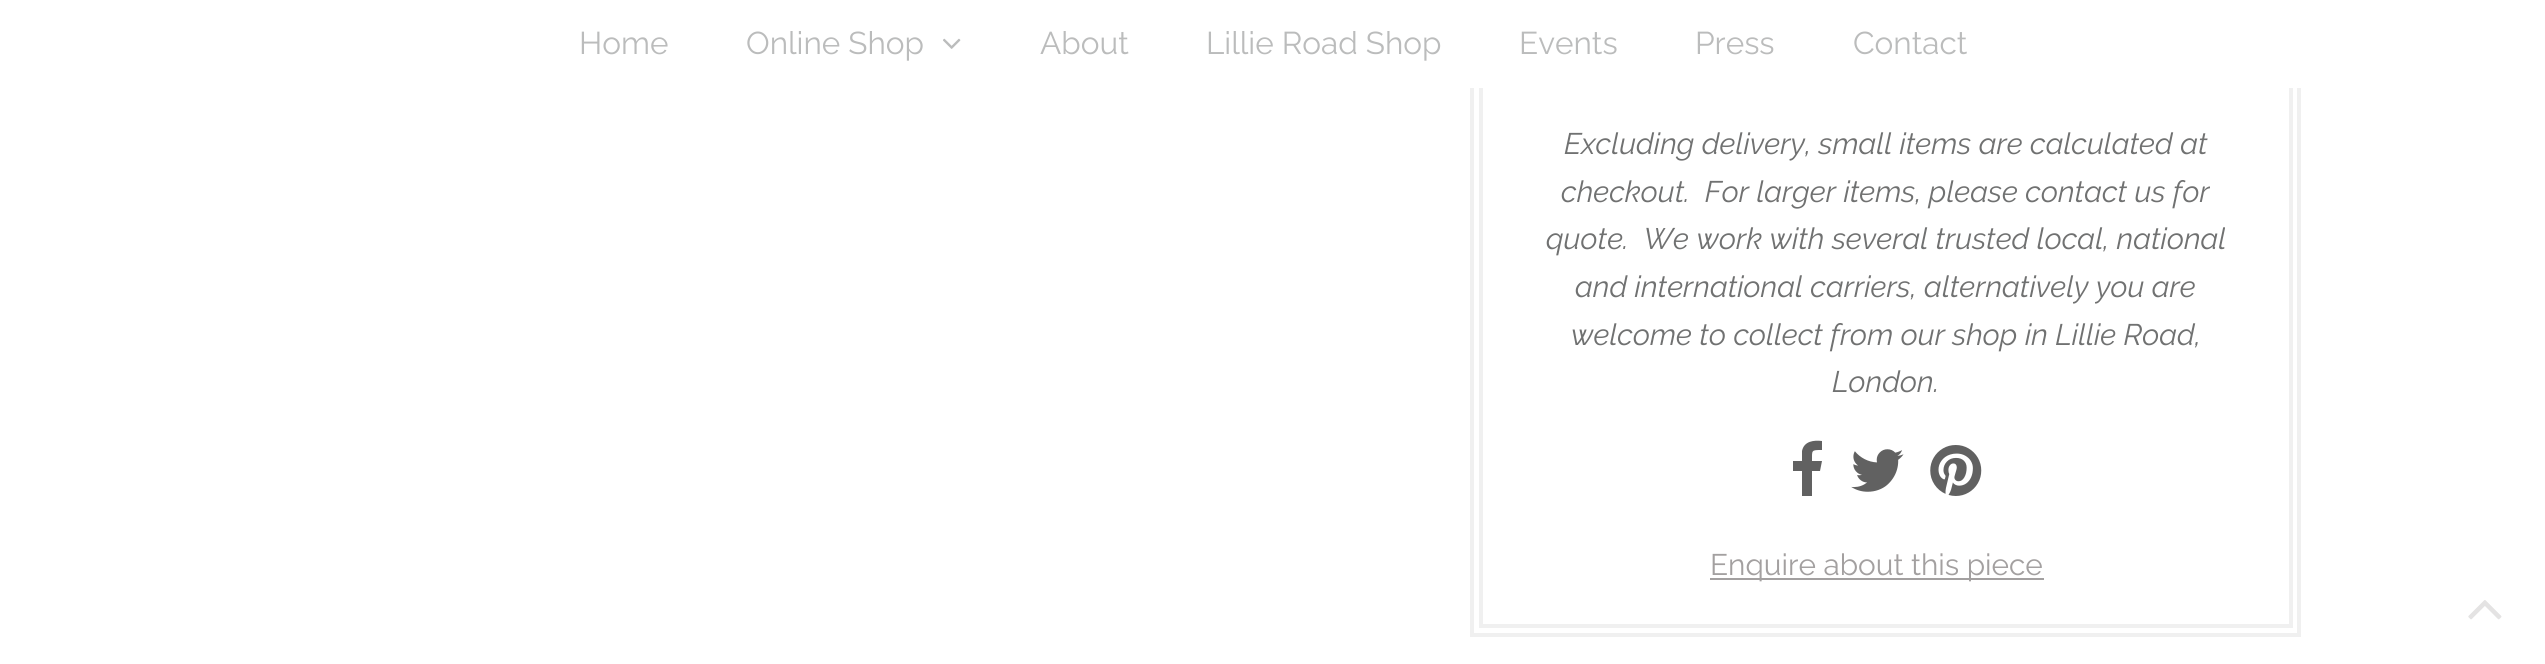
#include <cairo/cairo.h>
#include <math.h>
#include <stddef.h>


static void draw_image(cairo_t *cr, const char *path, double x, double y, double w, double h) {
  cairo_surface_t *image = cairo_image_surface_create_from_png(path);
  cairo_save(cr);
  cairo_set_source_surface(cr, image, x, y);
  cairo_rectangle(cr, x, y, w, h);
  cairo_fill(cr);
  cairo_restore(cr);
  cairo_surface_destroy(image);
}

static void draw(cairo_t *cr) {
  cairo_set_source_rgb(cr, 1, 1, 1);
  cairo_paint(cr);
  cairo_rectangle(cr, 1472, -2, 827, 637);
  cairo_set_source_rgb(cr, 240 / 255.0, 240 / 255.0, 240 / 255.0);
  cairo_set_line_width(cr, 4);
  cairo_stroke(cr);
  cairo_rectangle(cr, 1481, -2, 810, 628);
  cairo_stroke(cr);
  cairo_set_source_rgb(cr, 1, 1, 1);
  cairo_rectangle(cr, 1470, 0, 831, 88);
  cairo_fill(cr);
  draw_image(cr, "images/1.png", 943, 38, 18, 11);
  cairo_set_source_rgb(cr, 97 / 255.0, 97 / 255.0, 97 / 255.0);
  cairo_new_path(cr);
  cairo_move_to(cr, 1822, 441);
  cairo_line_to(cr, 1822, 450);
  cairo_curve_to(cr, 1811, 450, 1812, 450, 1812, 461);
  cairo_line_to(cr, 1822, 461);
  cairo_line_to(cr, 1820, 471);
  cairo_line_to(cr, 1812, 471);
  cairo_line_to(cr, 1812, 496);
  cairo_line_to(cr, 1802, 496);
  cairo_line_to(cr, 1802, 471);
  cairo_line_to(cr, 1793, 471);
  cairo_line_to(cr, 1793, 461);
  cairo_line_to(cr, 1802, 461);
  cairo_line_to(cr, 1802, 451);
  cairo_curve_to(cr, 1804, 441, 1814, 440, 1822, 441);
  cairo_close_path(cr);
  cairo_fill(cr);
  draw_image(cr, "images/2.png", 1851, 449, 53, 43);
  draw_image(cr, "images/3.png", 1930, 445, 52, 51);
  cairo_set_source_rgb(cr, 163 / 255.0, 160 / 255.0, 160 / 255.0);
  cairo_rectangle(cr, 1710, 578, 334, 2);
  cairo_fill(cr);
  draw_image(cr, "images/4.png", 2468, 600, 34, 20);
  cairo_select_font_face(cr, "Raleway", CAIRO_FONT_SLANT_NORMAL, CAIRO_FONT_WEIGHT_NORMAL);
  cairo_set_font_size(cr, 31.5);
  cairo_set_source_rgb(cr, 187 / 255.0, 188 / 255.0, 188 / 255.0);
  cairo_move_to(cr, 579, 54);
  cairo_show_text(cr, "Home");
  cairo_move_to(cr, 746, 54);
  cairo_show_text(cr, "Online Shop");
  cairo_move_to(cr, 1040, 54);
  cairo_show_text(cr, "About");
  cairo_move_to(cr, 1206, 54);
  cairo_show_text(cr, "Lillie Road Shop");
  cairo_move_to(cr, 1519, 54);
  cairo_show_text(cr, "Events");
  cairo_move_to(cr, 1695, 54);
  cairo_show_text(cr, "Press");
  cairo_move_to(cr, 1853, 54);
  cairo_show_text(cr, "Contact");
  cairo_select_font_face(cr, "Raleway", CAIRO_FONT_SLANT_ITALIC, CAIRO_FONT_WEIGHT_NORMAL);
  cairo_set_font_size(cr, 29.75);
  cairo_set_source_rgb(cr, 112 / 255.0, 113 / 255.0, 113 / 255.0);
  cairo_move_to(cr, 1564, 154);
  cairo_show_text(cr, "Excluding delivery, small items are calculated at");
  cairo_move_to(cr, 1561, 202);
  cairo_show_text(cr, "checkout.  For larger items, please contact us for");
  cairo_move_to(cr, 1546, 249);
  cairo_show_text(cr, "quote.  We work with several trusted local, national");
  cairo_move_to(cr, 1575, 297);
  cairo_show_text(cr, "and international carriers, alternatively you are");
  cairo_move_to(cr, 1571, 345);
  cairo_show_text(cr, "welcome to collect from our shop in Lillie Road,");
  cairo_move_to(cr, 1832, 392);
  cairo_show_text(cr, "London.");
  cairo_select_font_face(cr, "Raleway", CAIRO_FONT_SLANT_NORMAL, CAIRO_FONT_WEIGHT_NORMAL);
  cairo_set_source_rgb(cr, 163 / 255.0, 160 / 255.0, 160 / 255.0);
  cairo_move_to(cr, 1710, 575);
  cairo_show_text(cr, "Enquire about this piece");
}

int main(void) {
  cairo_surface_t *surface = cairo_image_surface_create(CAIRO_FORMAT_RGB24, 2545, 664);
  cairo_t *cr = cairo_create(surface);
  cairo_font_options_t *options = cairo_font_options_create();
  cairo_font_options_set_hint_metrics(options, CAIRO_HINT_METRICS_OFF);
  cairo_font_options_set_hint_style(options, CAIRO_HINT_STYLE_NONE);
  cairo_set_font_options(cr, options);
  cairo_set_miter_limit(cr, 4);
  draw(cr);
  cairo_surface_write_to_png(surface, "out.png");
  cairo_font_options_destroy(options);
  cairo_destroy(cr);
  cairo_surface_destroy(surface);
  return 0;
}
